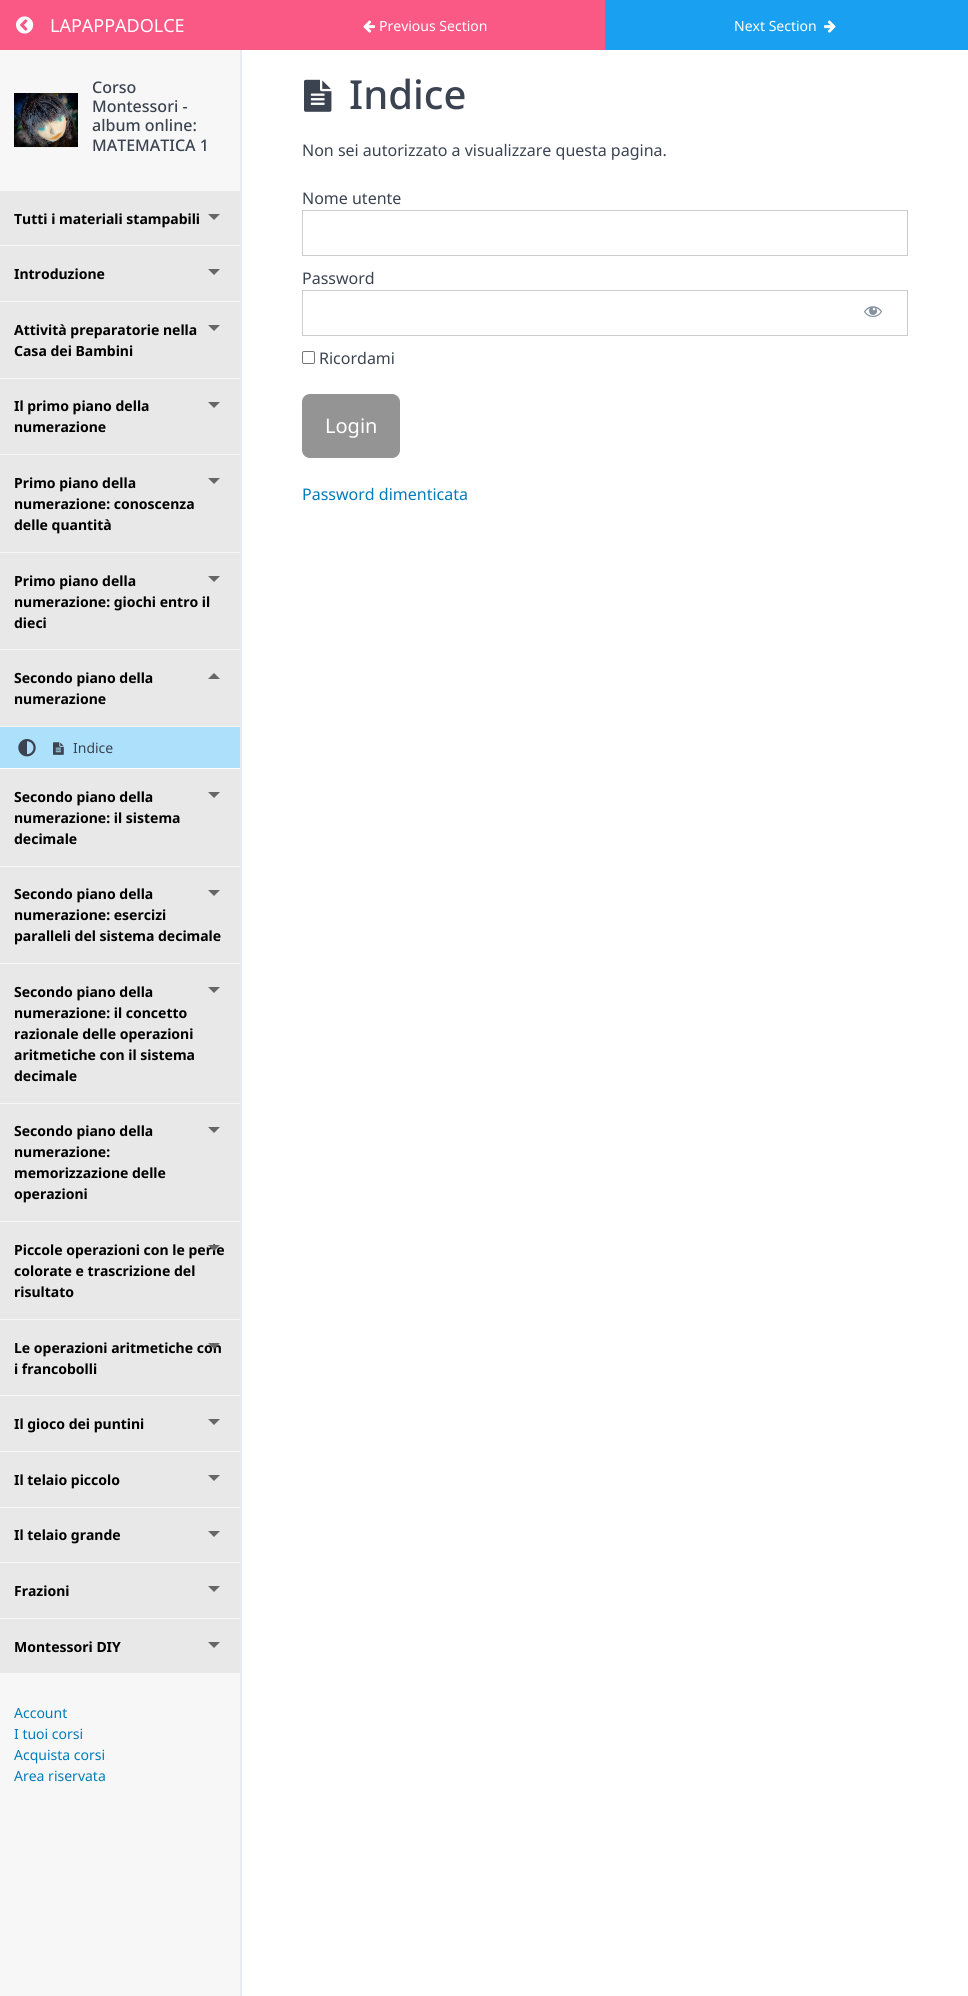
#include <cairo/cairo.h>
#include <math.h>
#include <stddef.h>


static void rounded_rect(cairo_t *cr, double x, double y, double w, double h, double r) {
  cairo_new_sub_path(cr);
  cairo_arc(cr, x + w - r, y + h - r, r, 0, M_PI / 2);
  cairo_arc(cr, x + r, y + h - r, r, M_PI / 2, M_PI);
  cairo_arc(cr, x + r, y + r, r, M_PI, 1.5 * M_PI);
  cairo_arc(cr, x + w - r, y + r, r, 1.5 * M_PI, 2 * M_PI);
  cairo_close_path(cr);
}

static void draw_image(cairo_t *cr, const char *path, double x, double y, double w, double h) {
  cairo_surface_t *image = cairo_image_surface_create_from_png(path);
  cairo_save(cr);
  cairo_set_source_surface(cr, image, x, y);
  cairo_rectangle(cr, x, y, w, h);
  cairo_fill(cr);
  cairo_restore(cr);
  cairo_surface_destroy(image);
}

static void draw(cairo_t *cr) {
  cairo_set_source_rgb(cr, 1, 1, 1);
  cairo_paint(cr);
  cairo_set_source_rgb(cr, 249 / 255.0, 89 / 255.0, 132 / 255.0);
  cairo_rectangle(cr, 0, 0, 605, 50);
  cairo_fill(cr);
  draw_image(cr, "images/1.png", 16, 16, 18, 18);
  draw_image(cr, "images/2.png", 363, 20, 12, 13);
  cairo_set_source_rgb(cr, 25 / 255.0, 160 / 255.0, 240 / 255.0);
  cairo_rectangle(cr, 605, 0, 363, 50);
  cairo_fill(cr);
  draw_image(cr, "images/3.png", 824, 20, 12, 13);
  cairo_set_source_rgb(cr, 247 / 255.0, 247 / 255.0, 247 / 255.0);
  cairo_rectangle(cr, 0, 50, 240, 1946);
  cairo_fill(cr);
  cairo_set_source_rgb(cr, 232 / 255.0, 235 / 255.0, 239 / 255.0);
  cairo_rectangle(cr, 240, 50, 2, 1946);
  cairo_fill(cr);
  draw_image(cr, "images/4.png", 14, 93, 64, 55);
  cairo_set_source_rgb(cr, 232 / 255.0, 232 / 255.0, 232 / 255.0);
  cairo_rectangle(cr, 0, 191, 240, 54);
  cairo_fill(cr);
  cairo_set_source_rgb(cr, 102 / 255.0, 102 / 255.0, 102 / 255.0);
  cairo_new_path(cr);
  cairo_move_to(cr, 208, 214);
  cairo_line_to(cr, 220, 214);
  cairo_line_to(cr, 214, 220);
  cairo_close_path(cr);
  cairo_fill(cr);
  cairo_set_source_rgb(cr, 232 / 255.0, 232 / 255.0, 232 / 255.0);
  cairo_rectangle(cr, 0, 246, 240, 55);
  cairo_fill(cr);
  cairo_set_source_rgb(cr, 102 / 255.0, 102 / 255.0, 102 / 255.0);
  cairo_new_path(cr);
  cairo_move_to(cr, 208, 269);
  cairo_line_to(cr, 220, 269);
  cairo_line_to(cr, 214, 275);
  cairo_close_path(cr);
  cairo_fill(cr);
  cairo_set_source_rgb(cr, 232 / 255.0, 232 / 255.0, 232 / 255.0);
  cairo_rectangle(cr, 0, 302, 240, 76);
  cairo_fill(cr);
  cairo_set_source_rgb(cr, 102 / 255.0, 102 / 255.0, 102 / 255.0);
  cairo_new_path(cr);
  cairo_move_to(cr, 208, 325);
  cairo_line_to(cr, 220, 325);
  cairo_line_to(cr, 214, 331);
  cairo_close_path(cr);
  cairo_fill(cr);
  cairo_set_source_rgb(cr, 232 / 255.0, 232 / 255.0, 232 / 255.0);
  cairo_rectangle(cr, 0, 379, 240, 75);
  cairo_fill(cr);
  cairo_set_source_rgb(cr, 102 / 255.0, 102 / 255.0, 102 / 255.0);
  cairo_new_path(cr);
  cairo_move_to(cr, 208, 402);
  cairo_line_to(cr, 220, 402);
  cairo_line_to(cr, 214, 408);
  cairo_close_path(cr);
  cairo_fill(cr);
  cairo_set_source_rgb(cr, 232 / 255.0, 232 / 255.0, 232 / 255.0);
  cairo_rectangle(cr, 0, 455, 240, 97);
  cairo_fill(cr);
  cairo_set_source_rgb(cr, 102 / 255.0, 102 / 255.0, 102 / 255.0);
  cairo_new_path(cr);
  cairo_move_to(cr, 208, 478);
  cairo_line_to(cr, 220, 478);
  cairo_line_to(cr, 214, 484);
  cairo_close_path(cr);
  cairo_fill(cr);
  cairo_set_source_rgb(cr, 232 / 255.0, 232 / 255.0, 232 / 255.0);
  cairo_rectangle(cr, 0, 553, 240, 96);
  cairo_fill(cr);
  cairo_set_source_rgb(cr, 102 / 255.0, 102 / 255.0, 102 / 255.0);
  cairo_new_path(cr);
  cairo_move_to(cr, 208, 576);
  cairo_line_to(cr, 220, 576);
  cairo_line_to(cr, 214, 582);
  cairo_close_path(cr);
  cairo_fill(cr);
  cairo_set_source_rgb(cr, 232 / 255.0, 232 / 255.0, 232 / 255.0);
  cairo_rectangle(cr, 0, 650, 240, 76);
  cairo_fill(cr);
  cairo_set_source_rgb(cr, 102 / 255.0, 102 / 255.0, 102 / 255.0);
  cairo_new_path(cr);
  cairo_move_to(cr, 220, 679);
  cairo_line_to(cr, 208, 679);
  cairo_line_to(cr, 214, 673);
  cairo_close_path(cr);
  cairo_fill(cr);
  cairo_set_source_rgb(cr, 173 / 255.0, 224 / 255.0, 250 / 255.0);
  cairo_rectangle(cr, 0, 727, 240, 41);
  cairo_fill(cr);
  cairo_set_source_rgb(cr, 1, 1, 1);
  cairo_rectangle(cr, 0, 768, 240, 1);
  cairo_fill(cr);
  draw_image(cr, "images/5.png", 18, 739, 18, 18);
  draw_image(cr, "images/6.png", 53, 742, 11, 13);
  cairo_set_source_rgb(cr, 232 / 255.0, 232 / 255.0, 232 / 255.0);
  cairo_rectangle(cr, 0, 769, 240, 97);
  cairo_fill(cr);
  cairo_set_source_rgb(cr, 102 / 255.0, 102 / 255.0, 102 / 255.0);
  cairo_new_path(cr);
  cairo_move_to(cr, 208, 792);
  cairo_line_to(cr, 220, 792);
  cairo_line_to(cr, 214, 798);
  cairo_close_path(cr);
  cairo_fill(cr);
  cairo_set_source_rgb(cr, 232 / 255.0, 232 / 255.0, 232 / 255.0);
  cairo_rectangle(cr, 0, 867, 240, 96);
  cairo_fill(cr);
  cairo_set_source_rgb(cr, 102 / 255.0, 102 / 255.0, 102 / 255.0);
  cairo_new_path(cr);
  cairo_move_to(cr, 208, 890);
  cairo_line_to(cr, 220, 890);
  cairo_line_to(cr, 214, 896);
  cairo_close_path(cr);
  cairo_fill(cr);
  cairo_set_source_rgb(cr, 232 / 255.0, 232 / 255.0, 232 / 255.0);
  cairo_rectangle(cr, 0, 964, 240, 139);
  cairo_fill(cr);
  cairo_set_source_rgb(cr, 102 / 255.0, 102 / 255.0, 102 / 255.0);
  cairo_new_path(cr);
  cairo_move_to(cr, 208, 987);
  cairo_line_to(cr, 220, 987);
  cairo_line_to(cr, 214, 993);
  cairo_close_path(cr);
  cairo_fill(cr);
  cairo_set_source_rgb(cr, 232 / 255.0, 232 / 255.0, 232 / 255.0);
  cairo_rectangle(cr, 0, 1104, 240, 117);
  cairo_fill(cr);
  cairo_set_source_rgb(cr, 102 / 255.0, 102 / 255.0, 102 / 255.0);
  cairo_new_path(cr);
  cairo_move_to(cr, 208, 1127);
  cairo_line_to(cr, 220, 1127);
  cairo_line_to(cr, 214, 1133);
  cairo_close_path(cr);
  cairo_fill(cr);
  cairo_set_source_rgb(cr, 232 / 255.0, 232 / 255.0, 232 / 255.0);
  cairo_rectangle(cr, 0, 1222, 240, 97);
  cairo_fill(cr);
  cairo_rectangle(cr, 0, 1320, 240, 75);
  cairo_fill(cr);
  cairo_rectangle(cr, 0, 1396, 240, 55);
  cairo_fill(cr);
  cairo_set_source_rgb(cr, 102 / 255.0, 102 / 255.0, 102 / 255.0);
  cairo_new_path(cr);
  cairo_move_to(cr, 208, 1419);
  cairo_line_to(cr, 220, 1419);
  cairo_line_to(cr, 214, 1425);
  cairo_close_path(cr);
  cairo_fill(cr);
  cairo_set_source_rgb(cr, 232 / 255.0, 232 / 255.0, 232 / 255.0);
  cairo_rectangle(cr, 0, 1452, 240, 55);
  cairo_fill(cr);
  cairo_set_source_rgb(cr, 102 / 255.0, 102 / 255.0, 102 / 255.0);
  cairo_new_path(cr);
  cairo_move_to(cr, 208, 1475);
  cairo_line_to(cr, 220, 1475);
  cairo_line_to(cr, 214, 1481);
  cairo_close_path(cr);
  cairo_fill(cr);
  cairo_set_source_rgb(cr, 232 / 255.0, 232 / 255.0, 232 / 255.0);
  cairo_rectangle(cr, 0, 1508, 240, 54);
  cairo_fill(cr);
  cairo_set_source_rgb(cr, 102 / 255.0, 102 / 255.0, 102 / 255.0);
  cairo_new_path(cr);
  cairo_move_to(cr, 208, 1531);
  cairo_line_to(cr, 220, 1531);
  cairo_line_to(cr, 214, 1537);
  cairo_close_path(cr);
  cairo_fill(cr);
  cairo_set_source_rgb(cr, 232 / 255.0, 232 / 255.0, 232 / 255.0);
  cairo_rectangle(cr, 0, 1563, 240, 55);
  cairo_fill(cr);
  cairo_set_source_rgb(cr, 102 / 255.0, 102 / 255.0, 102 / 255.0);
  cairo_new_path(cr);
  cairo_move_to(cr, 208, 1586);
  cairo_line_to(cr, 220, 1586);
  cairo_line_to(cr, 214, 1592);
  cairo_close_path(cr);
  cairo_fill(cr);
  cairo_set_source_rgb(cr, 232 / 255.0, 232 / 255.0, 232 / 255.0);
  cairo_rectangle(cr, 0, 1619, 240, 54);
  cairo_fill(cr);
  cairo_set_source_rgb(cr, 102 / 255.0, 102 / 255.0, 102 / 255.0);
  cairo_new_path(cr);
  cairo_move_to(cr, 208, 1642);
  cairo_line_to(cr, 220, 1642);
  cairo_line_to(cr, 214, 1648);
  cairo_close_path(cr);
  cairo_fill(cr);
  draw_image(cr, "images/7.png", 304, 79, 28, 33);
  cairo_rectangle(cr, 302.5, 210.5, 605, 45);
  cairo_set_source_rgb(cr, 204 / 255.0, 204 / 255.0, 204 / 255.0);
  cairo_set_line_width(cr, 1);
  cairo_stroke(cr);
  cairo_rectangle(cr, 302.5, 290.5, 605, 45);
  cairo_stroke(cr);
  draw_image(cr, "images/8.png", 864, 306, 18, 12);
  rounded_rect(cr, 302.5, 351.5, 12, 12, 1.5);
  cairo_set_source_rgb(cr, 118 / 255.0, 118 / 255.0, 118 / 255.0);
  cairo_stroke(cr);
  cairo_set_source_rgb(cr, 148 / 255.0, 148 / 255.0, 148 / 255.0);
  rounded_rect(cr, 302.5, 394.5, 97, 63, 7.5);
  cairo_fill_preserve(cr);
  cairo_stroke(cr);
  cairo_select_font_face(cr, "Noto Sans", CAIRO_FONT_SLANT_NORMAL, CAIRO_FONT_WEIGHT_NORMAL);
  cairo_set_font_size(cr, 18);
  cairo_set_source_rgb(cr, 1, 1, 1);
  cairo_move_to(cr, 50, 32);
  cairo_show_text(cr, "LAPAPPADOLCE");
  cairo_set_font_size(cr, 14);
  cairo_move_to(cr, 379, 31);
  cairo_show_text(cr, "Previous Section");
  cairo_move_to(cr, 734, 31);
  cairo_show_text(cr, "Next Section");
  cairo_select_font_face(cr, "Noto Sans Medium", CAIRO_FONT_SLANT_NORMAL, CAIRO_FONT_WEIGHT_NORMAL);
  cairo_set_font_size(cr, 16);
  cairo_set_source_rgb(cr, 59 / 255.0, 67 / 255.0, 81 / 255.0);
  cairo_move_to(cr, 92, 93);
  cairo_show_text(cr, "Corso");
  cairo_move_to(cr, 92, 112);
  cairo_show_text(cr, "Montessori -");
  cairo_move_to(cr, 92, 131);
  cairo_show_text(cr, "album online:");
  cairo_move_to(cr, 92, 151);
  cairo_show_text(cr, "MATEMATICA 1");
  cairo_select_font_face(cr, "Noto Sans", CAIRO_FONT_SLANT_NORMAL, CAIRO_FONT_WEIGHT_BOLD);
  cairo_set_font_size(cr, 14);
  cairo_set_source_rgb(cr, 0, 0, 0);
  cairo_move_to(cr, 14, 224);
  cairo_show_text(cr, "Tutti i materiali stampabili");
  cairo_move_to(cr, 14, 279);
  cairo_show_text(cr, "Introduzione");
  cairo_move_to(cr, 14, 335);
  cairo_show_text(cr, "Attività preparatorie nella");
  cairo_move_to(cr, 14, 356);
  cairo_show_text(cr, "Casa dei Bambini");
  cairo_move_to(cr, 14, 411);
  cairo_show_text(cr, "Il primo piano della");
  cairo_move_to(cr, 14, 432);
  cairo_show_text(cr, "numerazione");
  cairo_move_to(cr, 14, 488);
  cairo_show_text(cr, "Primo piano della");
  cairo_move_to(cr, 14, 509);
  cairo_show_text(cr, "numerazione: conoscenza");
  cairo_move_to(cr, 14, 530);
  cairo_show_text(cr, "delle quantità");
  cairo_move_to(cr, 14, 586);
  cairo_show_text(cr, "Primo piano della");
  cairo_move_to(cr, 14, 607);
  cairo_show_text(cr, "numerazione: giochi entro il");
  cairo_move_to(cr, 14, 628);
  cairo_show_text(cr, "dieci");
  cairo_move_to(cr, 14, 683);
  cairo_show_text(cr, "Secondo piano della");
  cairo_move_to(cr, 14, 704);
  cairo_show_text(cr, "numerazione");
  cairo_select_font_face(cr, "Noto Sans", CAIRO_FONT_SLANT_NORMAL, CAIRO_FONT_WEIGHT_NORMAL);
  cairo_set_source_rgb(cr, 59 / 255.0, 67 / 255.0, 81 / 255.0);
  cairo_move_to(cr, 73, 753);
  cairo_show_text(cr, "Indice");
  cairo_select_font_face(cr, "Noto Sans", CAIRO_FONT_SLANT_NORMAL, CAIRO_FONT_WEIGHT_BOLD);
  cairo_set_source_rgb(cr, 0, 0, 0);
  cairo_move_to(cr, 14, 802);
  cairo_show_text(cr, "Secondo piano della");
  cairo_move_to(cr, 14, 823);
  cairo_show_text(cr, "numerazione: il sistema");
  cairo_move_to(cr, 14, 844);
  cairo_show_text(cr, "decimale");
  cairo_move_to(cr, 14, 899);
  cairo_show_text(cr, "Secondo piano della");
  cairo_move_to(cr, 14, 920);
  cairo_show_text(cr, "numerazione: esercizi");
  cairo_move_to(cr, 14, 941);
  cairo_show_text(cr, "paralleli del sistema decimale");
  cairo_move_to(cr, 14, 997);
  cairo_show_text(cr, "Secondo piano della");
  cairo_move_to(cr, 14, 1018);
  cairo_show_text(cr, "numerazione: il concetto");
  cairo_move_to(cr, 14, 1039);
  cairo_show_text(cr, "razionale delle operazioni");
  cairo_move_to(cr, 14, 1060);
  cairo_show_text(cr, "aritmetiche con il sistema");
  cairo_move_to(cr, 14, 1081);
  cairo_show_text(cr, "decimale");
  cairo_move_to(cr, 14, 1136);
  cairo_show_text(cr, "Secondo piano della");
  cairo_move_to(cr, 14, 1157);
  cairo_show_text(cr, "numerazione:");
  cairo_move_to(cr, 14, 1178);
  cairo_show_text(cr, "memorizzazione delle");
  cairo_move_to(cr, 14, 1199);
  cairo_show_text(cr, "operazioni");
  cairo_move_to(cr, 14, 1255);
  cairo_show_text(cr, "Piccole operazioni con le perle");
  cairo_move_to(cr, 14, 1276);
  cairo_show_text(cr, "colorate e trascrizione del");
  cairo_move_to(cr, 14, 1297);
  cairo_show_text(cr, "risultato");
  cairo_set_source_rgb(cr, 102 / 255.0, 102 / 255.0, 102 / 255.0);
  cairo_new_path(cr);
  cairo_move_to(cr, 208, 1245);
  cairo_line_to(cr, 220, 1245);
  cairo_line_to(cr, 214, 1251);
  cairo_close_path(cr);
  cairo_fill(cr);
  cairo_set_source_rgb(cr, 0, 0, 0);
  cairo_move_to(cr, 14, 1353);
  cairo_show_text(cr, "Le operazioni aritmetiche con");
  cairo_move_to(cr, 14, 1374);
  cairo_show_text(cr, "i francobolli");
  cairo_set_source_rgb(cr, 102 / 255.0, 102 / 255.0, 102 / 255.0);
  cairo_new_path(cr);
  cairo_move_to(cr, 208, 1343);
  cairo_line_to(cr, 220, 1343);
  cairo_line_to(cr, 214, 1349);
  cairo_close_path(cr);
  cairo_fill(cr);
  cairo_set_source_rgb(cr, 0, 0, 0);
  cairo_move_to(cr, 14, 1429);
  cairo_show_text(cr, "Il gioco dei puntini");
  cairo_move_to(cr, 14, 1485);
  cairo_show_text(cr, "Il telaio piccolo");
  cairo_move_to(cr, 14, 1540);
  cairo_show_text(cr, "Il telaio grande");
  cairo_move_to(cr, 14, 1596);
  cairo_show_text(cr, "Frazioni");
  cairo_move_to(cr, 14, 1652);
  cairo_show_text(cr, "Montessori DIY");
  cairo_select_font_face(cr, "Noto Sans", CAIRO_FONT_SLANT_NORMAL, CAIRO_FONT_WEIGHT_NORMAL);
  cairo_set_source_rgb(cr, 0, 124 / 255.0, 186 / 255.0);
  cairo_move_to(cr, 14, 1718);
  cairo_show_text(cr, "Account");
  cairo_move_to(cr, 14, 1739);
  cairo_show_text(cr, "I tuoi corsi");
  cairo_move_to(cr, 14, 1760);
  cairo_show_text(cr, "Acquista corsi");
  cairo_move_to(cr, 14, 1781);
  cairo_show_text(cr, "Area riservata");
  cairo_select_font_face(cr, "Noto Sans Medium", CAIRO_FONT_SLANT_NORMAL, CAIRO_FONT_WEIGHT_NORMAL);
  cairo_set_font_size(cr, 40);
  cairo_set_source_rgb(cr, 59 / 255.0, 67 / 255.0, 81 / 255.0);
  cairo_move_to(cr, 349, 109);
  cairo_show_text(cr, "Indice");
  cairo_select_font_face(cr, "Noto Sans", CAIRO_FONT_SLANT_NORMAL, CAIRO_FONT_WEIGHT_NORMAL);
  cairo_set_font_size(cr, 16);
  cairo_move_to(cr, 302, 156);
  cairo_show_text(cr, "Non sei autorizzato a visualizzare questa pagina.");
  cairo_move_to(cr, 302, 204);
  cairo_show_text(cr, "Nome utente");
  cairo_move_to(cr, 302, 284);
  cairo_show_text(cr, "Password");
  cairo_move_to(cr, 319, 364);
  cairo_show_text(cr, "Ricordami");
  cairo_set_font_size(cr, 20);
  cairo_set_source_rgb(cr, 1, 1, 1);
  cairo_move_to(cr, 325, 433);
  cairo_show_text(cr, "Login");
  cairo_set_font_size(cr, 16);
  cairo_set_source_rgb(cr, 0, 124 / 255.0, 186 / 255.0);
  cairo_move_to(cr, 302, 500);
  cairo_show_text(cr, "Password dimenticata");
}

int main(void) {
  cairo_surface_t *surface = cairo_image_surface_create(CAIRO_FORMAT_RGB24, 968, 1996);
  cairo_t *cr = cairo_create(surface);
  cairo_font_options_t *options = cairo_font_options_create();
  cairo_font_options_set_hint_metrics(options, CAIRO_HINT_METRICS_OFF);
  cairo_font_options_set_hint_style(options, CAIRO_HINT_STYLE_NONE);
  cairo_set_font_options(cr, options);
  cairo_set_miter_limit(cr, 4);
  draw(cr);
  cairo_surface_write_to_png(surface, "out.png");
  cairo_font_options_destroy(options);
  cairo_destroy(cr);
  cairo_surface_destroy(surface);
  return 0;
}
